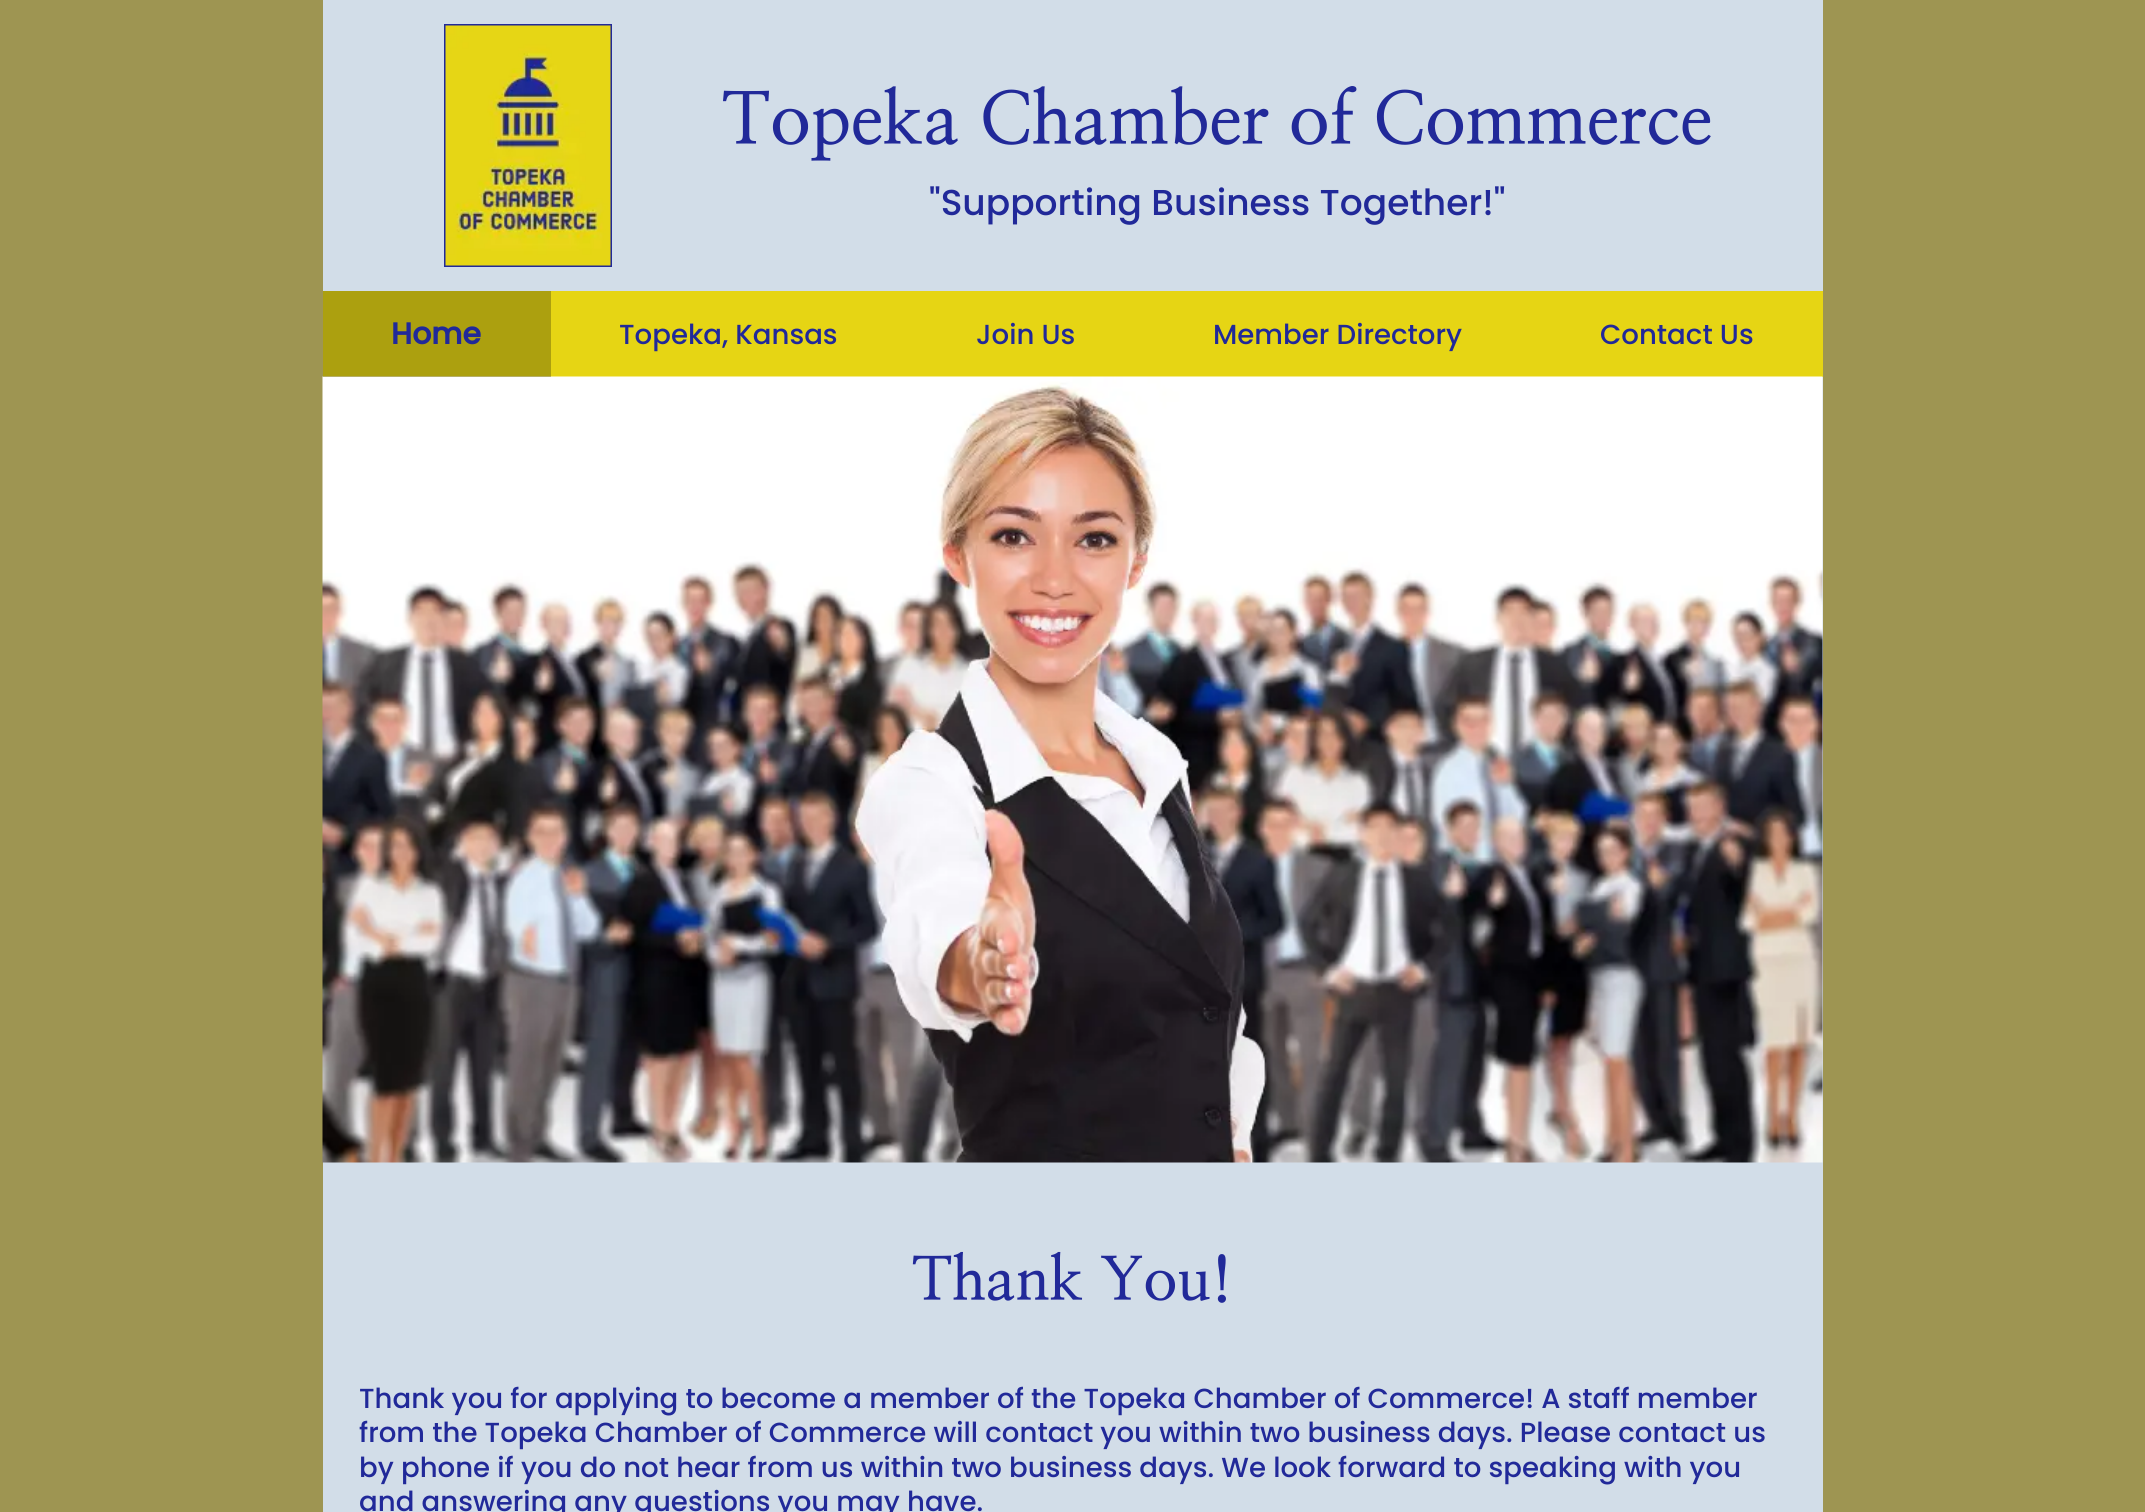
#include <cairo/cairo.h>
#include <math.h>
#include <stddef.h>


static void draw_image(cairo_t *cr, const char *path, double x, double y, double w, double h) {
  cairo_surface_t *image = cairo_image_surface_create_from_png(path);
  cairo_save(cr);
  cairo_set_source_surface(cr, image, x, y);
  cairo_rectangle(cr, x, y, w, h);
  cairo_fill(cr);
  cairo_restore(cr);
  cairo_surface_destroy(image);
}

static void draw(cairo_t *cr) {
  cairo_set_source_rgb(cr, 158 / 255.0, 149 / 255.0, 82 / 255.0);
  cairo_paint(cr);
  cairo_set_source_rgb(cr, 210 / 255.0, 221 / 255.0, 232 / 255.0);
  cairo_rectangle(cr, 323, 0, 1500, 1512);
  cairo_fill(cr);
  cairo_rectangle(cr, 445, 25, 166, 241);
  cairo_set_source_rgb(cr, 33 / 255.0, 41 / 255.0, 153 / 255.0);
  cairo_stroke(cr);
  draw_image(cr, "images/1.png", 445, 25, 166, 241);
  cairo_set_source_rgb(cr, 230 / 255.0, 213 / 255.0, 20 / 255.0);
  cairo_rectangle(cr, 323, 291, 1500, 86);
  cairo_fill(cr);
  draw_image(cr, "images/2.png", 322, 376, 1501, 787);
  cairo_set_source_rgba(cr, 0, 0, 0, 0.25);
  cairo_rectangle(cr, 323, 291, 228, 86);
  cairo_fill(cr);
  cairo_select_font_face(cr, "NanumMyeongjo", CAIRO_FONT_SLANT_NORMAL, CAIRO_FONT_WEIGHT_BOLD);
  cairo_set_font_size(cr, 72);
  cairo_set_source_rgb(cr, 33 / 255.0, 41 / 255.0, 153 / 255.0);
  cairo_move_to(cr, 722, 144);
  cairo_show_text(cr, "Topeka Chamber of Commerce");
  cairo_select_font_face(cr, "Poppins Medium", CAIRO_FONT_SLANT_NORMAL, CAIRO_FONT_WEIGHT_NORMAL);
  cairo_set_font_size(cr, 36);
  cairo_move_to(cr, 929, 215);
  cairo_show_text(cr, "\"Supporting Business Together!\"");
  cairo_select_font_face(cr, "Poppins", CAIRO_FONT_SLANT_NORMAL, CAIRO_FONT_WEIGHT_BOLD);
  cairo_set_font_size(cr, 30);
  cairo_move_to(cr, 391, 344);
  cairo_show_text(cr, "Home");
  cairo_select_font_face(cr, "Poppins Medium", CAIRO_FONT_SLANT_NORMAL, CAIRO_FONT_WEIGHT_NORMAL);
  cairo_set_font_size(cr, 27.6);
  cairo_move_to(cr, 619, 344);
  cairo_show_text(cr, "Topeka, Kansas");
  cairo_move_to(cr, 976, 344);
  cairo_show_text(cr, "Join Us");
  cairo_move_to(cr, 1213, 344);
  cairo_show_text(cr, "Member Directory");
  cairo_move_to(cr, 1600, 344);
  cairo_show_text(cr, "Contact Us");
  cairo_select_font_face(cr, "NanumMyeongjo", CAIRO_FONT_SLANT_NORMAL, CAIRO_FONT_WEIGHT_BOLD);
  cairo_set_font_size(cr, 60);
  cairo_move_to(cr, 912, 1300);
  cairo_show_text(cr, "Thank You!");
  cairo_select_font_face(cr, "Poppins Medium", CAIRO_FONT_SLANT_NORMAL, CAIRO_FONT_WEIGHT_NORMAL);
  cairo_set_font_size(cr, 27.6);
  cairo_move_to(cr, 359, 1408);
  cairo_show_text(cr, "Thank you for applying to become a member of the Topeka Chamber of Commerce! A staff member");
  cairo_move_to(cr, 359, 1442);
  cairo_show_text(cr, "from the Topeka Chamber of Commerce will contact you within two business days. Please contact us");
  cairo_move_to(cr, 359, 1477);
  cairo_show_text(cr, "by phone if you do not hear from us within two business days. We look forward to speaking with you");
  cairo_move_to(cr, 359, 1511);
  cairo_show_text(cr, "and answering any questions you may have.");
}

int main(void) {
  cairo_surface_t *surface = cairo_image_surface_create(CAIRO_FORMAT_RGB24, 2145, 1512);
  cairo_t *cr = cairo_create(surface);
  cairo_font_options_t *options = cairo_font_options_create();
  cairo_font_options_set_hint_metrics(options, CAIRO_HINT_METRICS_OFF);
  cairo_font_options_set_hint_style(options, CAIRO_HINT_STYLE_NONE);
  cairo_set_font_options(cr, options);
  cairo_set_miter_limit(cr, 4);
  draw(cr);
  cairo_surface_write_to_png(surface, "out.png");
  cairo_font_options_destroy(options);
  cairo_destroy(cr);
  cairo_surface_destroy(surface);
  return 0;
}
